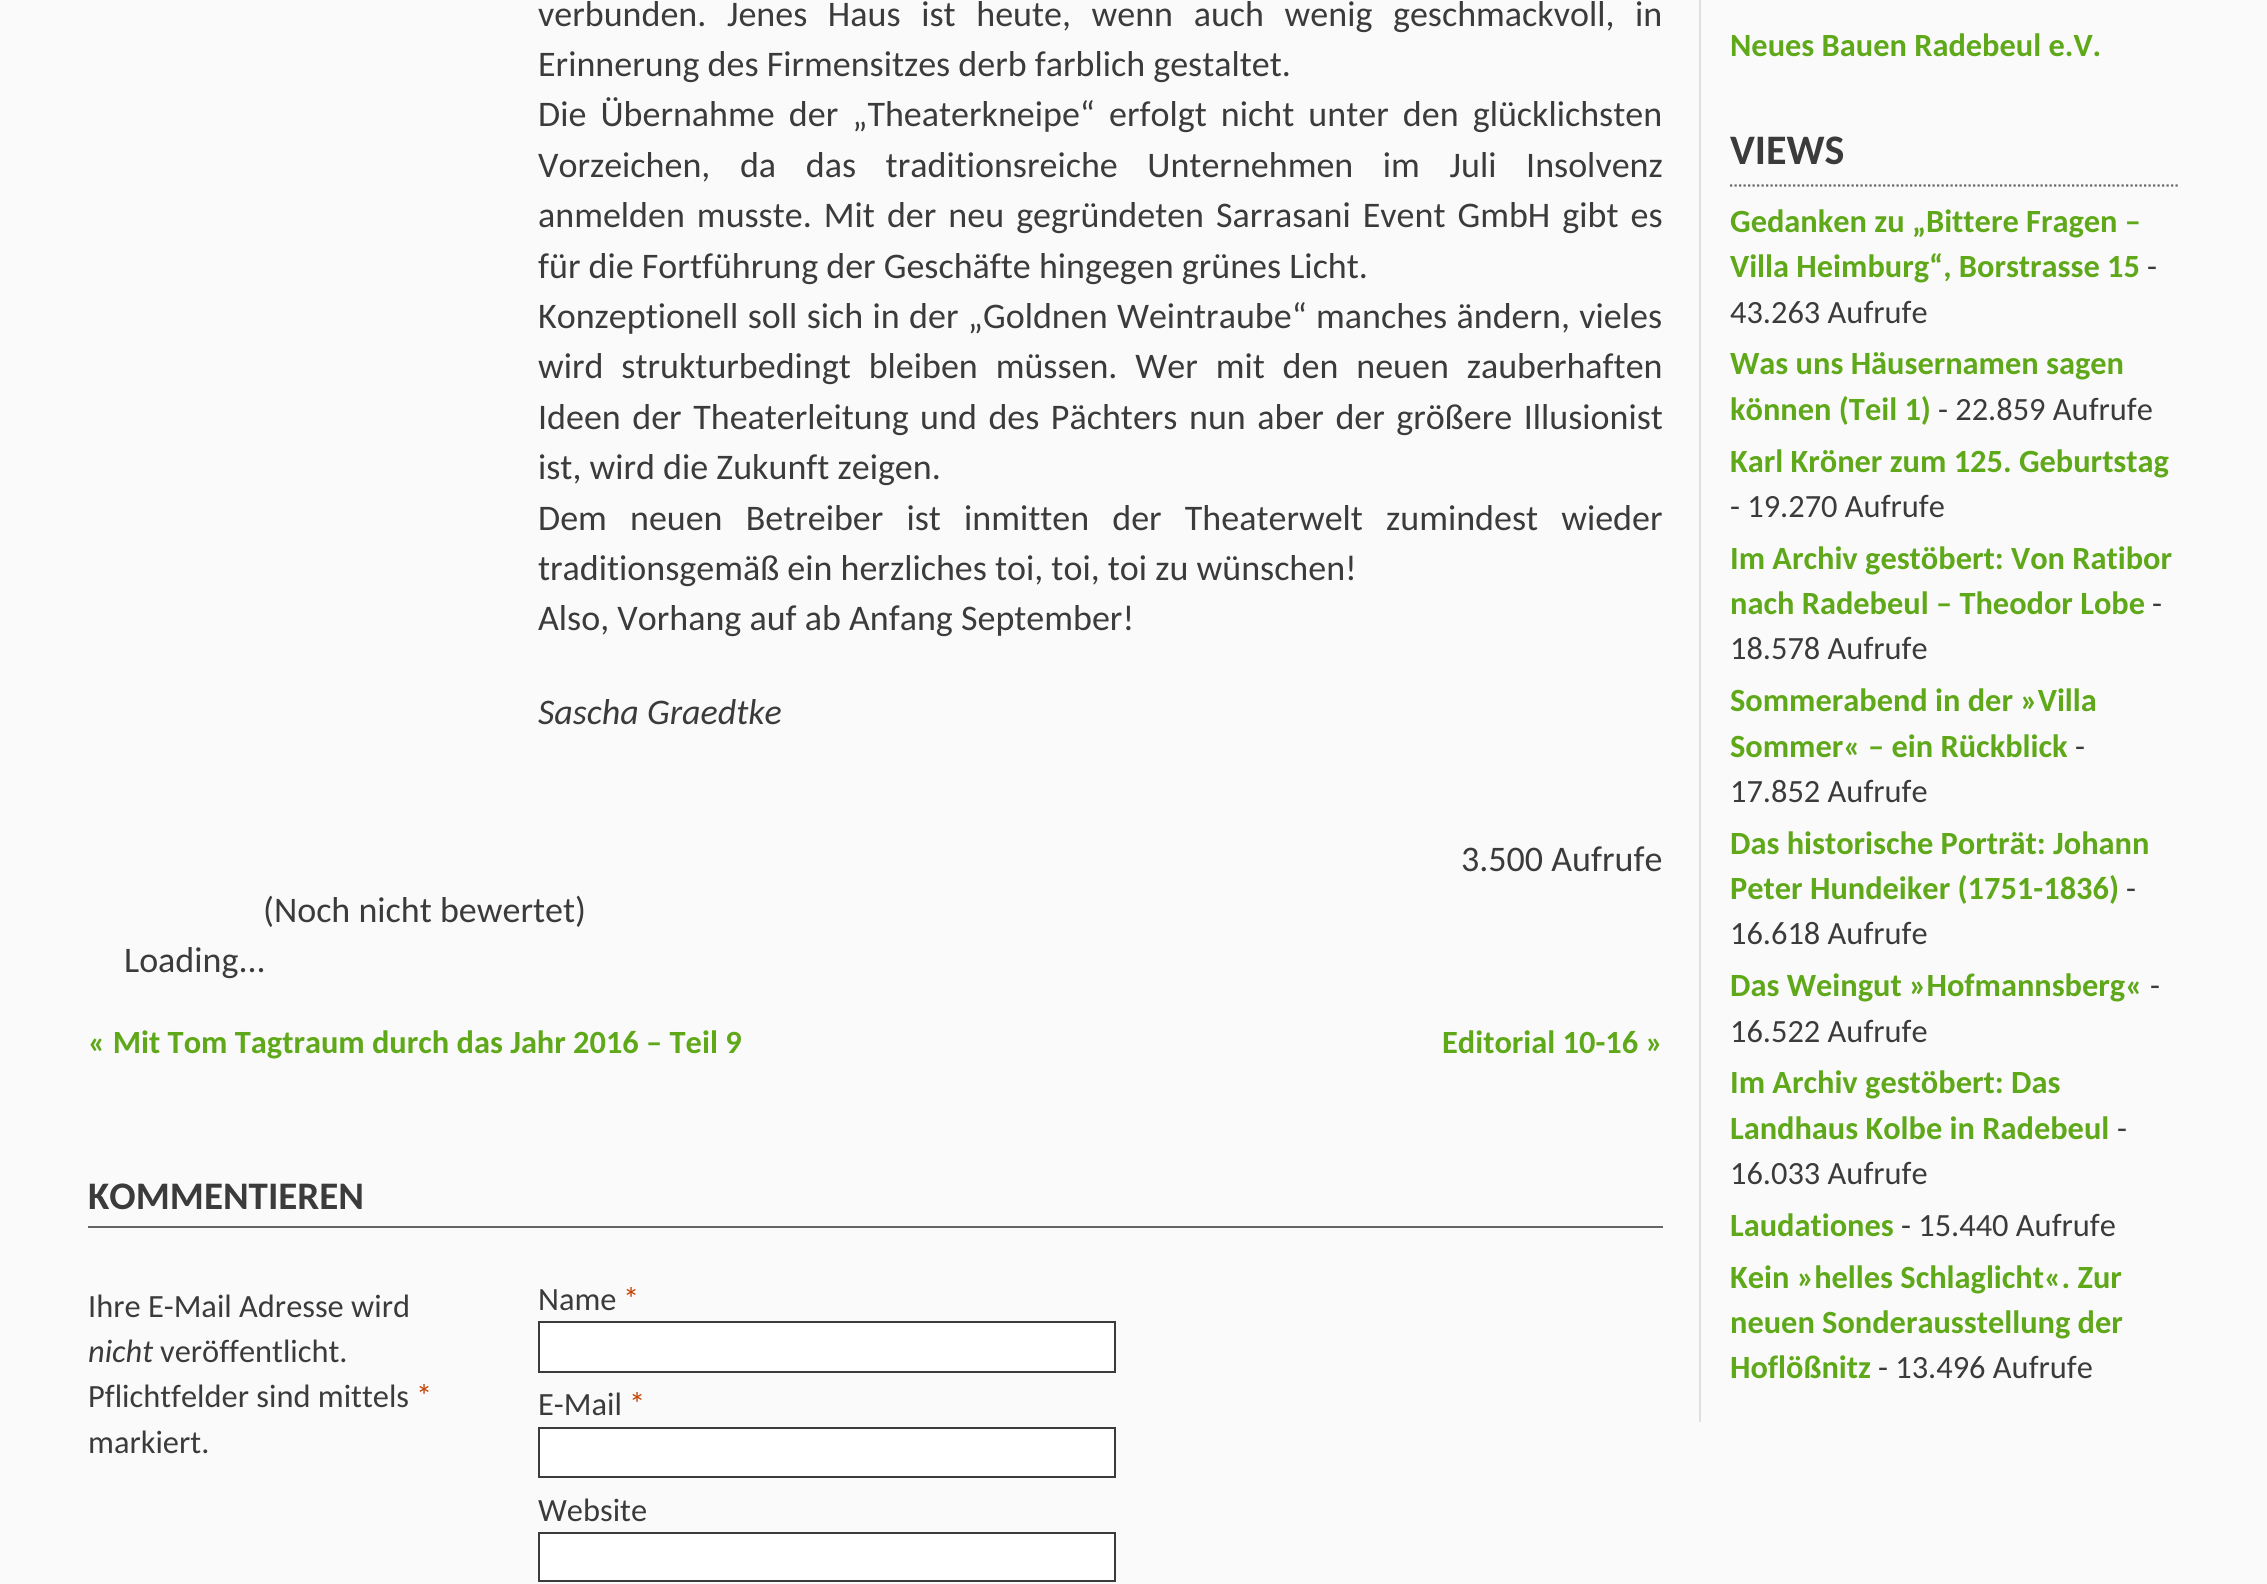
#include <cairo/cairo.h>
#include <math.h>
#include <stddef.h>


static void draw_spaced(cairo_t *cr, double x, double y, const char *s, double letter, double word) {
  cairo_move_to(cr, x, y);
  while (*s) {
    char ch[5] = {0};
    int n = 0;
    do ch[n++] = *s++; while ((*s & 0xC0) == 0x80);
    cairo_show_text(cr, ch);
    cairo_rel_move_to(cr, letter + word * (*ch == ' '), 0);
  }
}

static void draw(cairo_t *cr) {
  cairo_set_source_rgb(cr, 250 / 255.0, 250 / 255.0, 250 / 255.0);
  cairo_paint(cr);
  cairo_set_source_rgb(cr, 102 / 255.0, 102 / 255.0, 102 / 255.0);
  cairo_rectangle(cr, 88, 1226, 1575, 2);
  cairo_fill(cr);
  cairo_set_source_rgb(cr, 1, 1, 1);
  cairo_rectangle(cr, 539, 1322, 576, 50);
  cairo_fill_preserve(cr);
  cairo_set_source_rgb(cr, 59 / 255.0, 59 / 255.0, 59 / 255.0);
  cairo_stroke(cr);
  cairo_set_source_rgb(cr, 1, 1, 1);
  cairo_rectangle(cr, 539, 1428, 576, 49);
  cairo_fill_preserve(cr);
  cairo_set_source_rgb(cr, 59 / 255.0, 59 / 255.0, 59 / 255.0);
  cairo_stroke(cr);
  cairo_set_source_rgb(cr, 1, 1, 1);
  cairo_rectangle(cr, 539, 1533, 576, 48);
  cairo_fill_preserve(cr);
  cairo_set_source_rgb(cr, 59 / 255.0, 59 / 255.0, 59 / 255.0);
  cairo_stroke(cr);
  cairo_set_source_rgb(cr, 223 / 255.0, 223 / 255.0, 223 / 255.0);
  cairo_rectangle(cr, 1699, 0, 2, 1422);
  cairo_fill(cr);
  cairo_new_path(cr);
  cairo_move_to(cr, 1730, 185.5);
  cairo_line_to(cr, 2180, 185.5);
  cairo_set_source_rgb(cr, 102 / 255.0, 102 / 255.0, 102 / 255.0);
  cairo_set_line_width(cr, 2.2);
  cairo_set_dash(cr, (double[]){2.25, 2.25}, 2, 0);
  cairo_stroke(cr);
  cairo_select_font_face(cr, "Carlito", CAIRO_FONT_SLANT_NORMAL, CAIRO_FONT_WEIGHT_NORMAL);
  cairo_set_font_size(cr, 36);
  cairo_set_source_rgb(cr, 59 / 255.0, 59 / 255.0, 59 / 255.0);
  draw_spaced(cr, 538, 26, "verbunden. Jenes Haus ist heute, wenn auch wenig geschmackvoll, in", 0, 12.5);
  cairo_move_to(cr, 538, 76);
  cairo_show_text(cr, "Erinnerung des Firmensitzes derb farblich gestaltet.");
  draw_spaced(cr, 538, 126, "Die Übernahme der „Theaterkneipe“ erfolgt nicht unter den glücklichsten", 0, 6);
  draw_spaced(cr, 538, 177, "Vorzeichen, da das traditionsreiche Unternehmen im Juli Insolvenz", 0, 21.5);
  draw_spaced(cr, 538, 227, "anmelden musste. Mit der neu gegründeten Sarrasani Event GmbH gibt es", 0, 3.9);
  cairo_move_to(cr, 538, 278);
  cairo_show_text(cr, "für die Fortführung der Geschäfte hingegen grünes Licht.");
  draw_spaced(cr, 538, 328, "Konzeptionell soll sich in der „Goldnen Weintraube“ manches ändern, vieles", 0, 1.25);
  draw_spaced(cr, 538, 378, "wird strukturbedingt bleiben müssen. Wer mit den neuen zauberhaften", 0, 9.75);
  draw_spaced(cr, 538, 429, "Ideen der Theaterleitung und des Pächters nun aber der größere Illusionist", 0, 3.4);
  cairo_move_to(cr, 538, 479);
  cairo_show_text(cr, "ist, wird die Zukunft zeigen.");
  draw_spaced(cr, 538, 530, "Dem neuen Betreiber ist inmitten der Theaterwelt zumindest wieder", 0, 15);
  cairo_move_to(cr, 538, 580);
  cairo_show_text(cr, "traditionsgemäß ein herzliches toi, toi, toi zu wünschen!");
  cairo_move_to(cr, 538, 630);
  cairo_show_text(cr, "Also, Vorhang auf ab Anfang September!");
  cairo_select_font_face(cr, "Carlito", CAIRO_FONT_SLANT_ITALIC, CAIRO_FONT_WEIGHT_NORMAL);
  cairo_move_to(cr, 538, 724);
  cairo_show_text(cr, "Sascha Graedtke");
  cairo_select_font_face(cr, "Carlito", CAIRO_FONT_SLANT_NORMAL, CAIRO_FONT_WEIGHT_NORMAL);
  cairo_move_to(cr, 1461, 871);
  cairo_show_text(cr, "3.500 Aufrufe");
  cairo_move_to(cr, 263, 922);
  cairo_show_text(cr, "(Noch nicht bewertet)");
  cairo_move_to(cr, 124, 972);
  cairo_show_text(cr, "Loading...");
  cairo_select_font_face(cr, "Carlito", CAIRO_FONT_SLANT_NORMAL, CAIRO_FONT_WEIGHT_BOLD);
  cairo_set_font_size(cr, 32.4);
  cairo_set_source_rgb(cr, 95 / 255.0, 168 / 255.0, 26 / 255.0);
  cairo_move_to(cr, 88, 1053);
  cairo_show_text(cr, "« Mit Tom Tagtraum durch das Jahr 2016 – Teil 9");
  cairo_move_to(cr, 1442, 1053);
  cairo_show_text(cr, "Editorial 10-16 »");
  cairo_set_font_size(cr, 39);
  cairo_set_source_rgb(cr, 59 / 255.0, 59 / 255.0, 59 / 255.0);
  cairo_move_to(cr, 88, 1209);
  cairo_show_text(cr, "KOMMENTIEREN");
  cairo_select_font_face(cr, "Carlito", CAIRO_FONT_SLANT_NORMAL, CAIRO_FONT_WEIGHT_NORMAL);
  cairo_set_font_size(cr, 32.4);
  cairo_move_to(cr, 88, 1317);
  cairo_show_text(cr, "Ihre E-Mail Adresse wird");
  cairo_select_font_face(cr, "Carlito", CAIRO_FONT_SLANT_ITALIC, CAIRO_FONT_WEIGHT_NORMAL);
  cairo_move_to(cr, 88, 1362);
  cairo_show_text(cr, "nicht");
  cairo_select_font_face(cr, "Carlito", CAIRO_FONT_SLANT_NORMAL, CAIRO_FONT_WEIGHT_NORMAL);
  cairo_move_to(cr, 160, 1362);
  cairo_show_text(cr, "veröffentlicht.");
  cairo_move_to(cr, 88, 1407);
  cairo_show_text(cr, "Pflichtfelder sind mittels");
  cairo_set_source_rgb(cr, 196 / 255.0, 65 / 255.0, 0);
  cairo_move_to(cr, 416, 1407);
  cairo_show_text(cr, "*");
  cairo_set_source_rgb(cr, 59 / 255.0, 59 / 255.0, 59 / 255.0);
  cairo_move_to(cr, 88, 1453);
  cairo_show_text(cr, "markiert.");
  cairo_move_to(cr, 538, 1310);
  cairo_show_text(cr, "Name");
  cairo_set_source_rgb(cr, 196 / 255.0, 65 / 255.0, 0);
  cairo_move_to(cr, 623, 1310);
  cairo_show_text(cr, "*");
  cairo_set_source_rgb(cr, 59 / 255.0, 59 / 255.0, 59 / 255.0);
  cairo_move_to(cr, 538, 1415);
  cairo_show_text(cr, "E-Mail");
  cairo_set_source_rgb(cr, 196 / 255.0, 65 / 255.0, 0);
  cairo_move_to(cr, 629, 1415);
  cairo_show_text(cr, "*");
  cairo_set_source_rgb(cr, 59 / 255.0, 59 / 255.0, 59 / 255.0);
  cairo_move_to(cr, 538, 1521);
  cairo_show_text(cr, "Website");
  cairo_select_font_face(cr, "Carlito", CAIRO_FONT_SLANT_NORMAL, CAIRO_FONT_WEIGHT_BOLD);
  cairo_set_source_rgb(cr, 95 / 255.0, 168 / 255.0, 26 / 255.0);
  cairo_move_to(cr, 1730, 56);
  cairo_show_text(cr, "Neues Bauen Radebeul e.V.");
  cairo_set_font_size(cr, 42);
  cairo_set_source_rgb(cr, 59 / 255.0, 59 / 255.0, 59 / 255.0);
  cairo_move_to(cr, 1730, 164);
  cairo_show_text(cr, "VIEWS");
  cairo_set_font_size(cr, 32.4);
  cairo_set_source_rgb(cr, 95 / 255.0, 168 / 255.0, 26 / 255.0);
  cairo_move_to(cr, 1730, 232);
  cairo_show_text(cr, "Gedanken zu „Bittere Fragen –");
  cairo_move_to(cr, 1730, 277);
  cairo_show_text(cr, "Villa Heimburg“, Borstrasse 15");
  cairo_select_font_face(cr, "Carlito", CAIRO_FONT_SLANT_NORMAL, CAIRO_FONT_WEIGHT_NORMAL);
  cairo_set_source_rgb(cr, 59 / 255.0, 59 / 255.0, 59 / 255.0);
  cairo_move_to(cr, 2147, 277);
  cairo_show_text(cr, "-");
  cairo_move_to(cr, 1730, 323);
  cairo_show_text(cr, "43.263 Aufrufe");
  cairo_select_font_face(cr, "Carlito", CAIRO_FONT_SLANT_NORMAL, CAIRO_FONT_WEIGHT_BOLD);
  cairo_set_source_rgb(cr, 95 / 255.0, 168 / 255.0, 26 / 255.0);
  cairo_move_to(cr, 1730, 374);
  cairo_show_text(cr, "Was uns Häusernamen sagen");
  cairo_move_to(cr, 1730, 420);
  cairo_show_text(cr, "können (Teil 1)");
  cairo_select_font_face(cr, "Carlito", CAIRO_FONT_SLANT_NORMAL, CAIRO_FONT_WEIGHT_NORMAL);
  cairo_set_source_rgb(cr, 59 / 255.0, 59 / 255.0, 59 / 255.0);
  cairo_move_to(cr, 1938, 420);
  cairo_show_text(cr, "- 22.859 Aufrufe");
  cairo_select_font_face(cr, "Carlito", CAIRO_FONT_SLANT_NORMAL, CAIRO_FONT_WEIGHT_BOLD);
  cairo_set_source_rgb(cr, 95 / 255.0, 168 / 255.0, 26 / 255.0);
  cairo_move_to(cr, 1730, 472);
  cairo_show_text(cr, "Karl Kröner zum 125. Geburtstag");
  cairo_select_font_face(cr, "Carlito", CAIRO_FONT_SLANT_NORMAL, CAIRO_FONT_WEIGHT_NORMAL);
  cairo_set_source_rgb(cr, 59 / 255.0, 59 / 255.0, 59 / 255.0);
  cairo_move_to(cr, 1730, 517);
  cairo_show_text(cr, "- 19.270 Aufrufe");
  cairo_select_font_face(cr, "Carlito", CAIRO_FONT_SLANT_NORMAL, CAIRO_FONT_WEIGHT_BOLD);
  cairo_set_source_rgb(cr, 95 / 255.0, 168 / 255.0, 26 / 255.0);
  cairo_move_to(cr, 1730, 569);
  cairo_show_text(cr, "Im Archiv gestöbert: Von Ratibor");
  cairo_move_to(cr, 1730, 614);
  cairo_show_text(cr, "nach Radebeul – Theodor Lobe");
  cairo_select_font_face(cr, "Carlito", CAIRO_FONT_SLANT_NORMAL, CAIRO_FONT_WEIGHT_NORMAL);
  cairo_set_source_rgb(cr, 59 / 255.0, 59 / 255.0, 59 / 255.0);
  cairo_move_to(cr, 2152, 614);
  cairo_show_text(cr, "-");
  cairo_move_to(cr, 1730, 659);
  cairo_show_text(cr, "18.578 Aufrufe");
  cairo_select_font_face(cr, "Carlito", CAIRO_FONT_SLANT_NORMAL, CAIRO_FONT_WEIGHT_BOLD);
  cairo_set_source_rgb(cr, 95 / 255.0, 168 / 255.0, 26 / 255.0);
  cairo_move_to(cr, 1730, 711);
  cairo_show_text(cr, "Sommerabend in der »Villa");
  cairo_move_to(cr, 1730, 757);
  cairo_show_text(cr, "Sommer« – ein Rückblick");
  cairo_select_font_face(cr, "Carlito", CAIRO_FONT_SLANT_NORMAL, CAIRO_FONT_WEIGHT_NORMAL);
  cairo_set_source_rgb(cr, 59 / 255.0, 59 / 255.0, 59 / 255.0);
  cairo_move_to(cr, 2075, 757);
  cairo_show_text(cr, "-");
  cairo_move_to(cr, 1730, 802);
  cairo_show_text(cr, "17.852 Aufrufe");
  cairo_select_font_face(cr, "Carlito", CAIRO_FONT_SLANT_NORMAL, CAIRO_FONT_WEIGHT_BOLD);
  cairo_set_source_rgb(cr, 95 / 255.0, 168 / 255.0, 26 / 255.0);
  cairo_move_to(cr, 1730, 854);
  cairo_show_text(cr, "Das historische Porträt: Johann");
  cairo_move_to(cr, 1730, 899);
  cairo_show_text(cr, "Peter Hundeiker (1751-1836)");
  cairo_select_font_face(cr, "Carlito", CAIRO_FONT_SLANT_NORMAL, CAIRO_FONT_WEIGHT_NORMAL);
  cairo_set_source_rgb(cr, 59 / 255.0, 59 / 255.0, 59 / 255.0);
  cairo_move_to(cr, 2126, 899);
  cairo_show_text(cr, "-");
  cairo_move_to(cr, 1730, 944);
  cairo_show_text(cr, "16.618 Aufrufe");
  cairo_select_font_face(cr, "Carlito", CAIRO_FONT_SLANT_NORMAL, CAIRO_FONT_WEIGHT_BOLD);
  cairo_set_source_rgb(cr, 95 / 255.0, 168 / 255.0, 26 / 255.0);
  cairo_move_to(cr, 1730, 996);
  cairo_show_text(cr, "Das Weingut »Hofmannsberg«");
  cairo_select_font_face(cr, "Carlito", CAIRO_FONT_SLANT_NORMAL, CAIRO_FONT_WEIGHT_NORMAL);
  cairo_set_source_rgb(cr, 59 / 255.0, 59 / 255.0, 59 / 255.0);
  cairo_move_to(cr, 2150, 996);
  cairo_show_text(cr, "-");
  cairo_move_to(cr, 1730, 1042);
  cairo_show_text(cr, "16.522 Aufrufe");
  cairo_select_font_face(cr, "Carlito", CAIRO_FONT_SLANT_NORMAL, CAIRO_FONT_WEIGHT_BOLD);
  cairo_set_source_rgb(cr, 95 / 255.0, 168 / 255.0, 26 / 255.0);
  cairo_move_to(cr, 1730, 1093);
  cairo_show_text(cr, "Im Archiv gestöbert: Das");
  cairo_move_to(cr, 1730, 1139);
  cairo_show_text(cr, "Landhaus Kolbe in Radebeul");
  cairo_select_font_face(cr, "Carlito", CAIRO_FONT_SLANT_NORMAL, CAIRO_FONT_WEIGHT_NORMAL);
  cairo_set_source_rgb(cr, 59 / 255.0, 59 / 255.0, 59 / 255.0);
  cairo_move_to(cr, 2117, 1139);
  cairo_show_text(cr, "-");
  cairo_move_to(cr, 1730, 1184);
  cairo_show_text(cr, "16.033 Aufrufe");
  cairo_select_font_face(cr, "Carlito", CAIRO_FONT_SLANT_NORMAL, CAIRO_FONT_WEIGHT_BOLD);
  cairo_set_source_rgb(cr, 95 / 255.0, 168 / 255.0, 26 / 255.0);
  cairo_move_to(cr, 1730, 1236);
  cairo_show_text(cr, "Laudationes");
  cairo_select_font_face(cr, "Carlito", CAIRO_FONT_SLANT_NORMAL, CAIRO_FONT_WEIGHT_NORMAL);
  cairo_set_source_rgb(cr, 59 / 255.0, 59 / 255.0, 59 / 255.0);
  cairo_move_to(cr, 1901, 1236);
  cairo_show_text(cr, "- 15.440 Aufrufe");
  cairo_select_font_face(cr, "Carlito", CAIRO_FONT_SLANT_NORMAL, CAIRO_FONT_WEIGHT_BOLD);
  cairo_set_source_rgb(cr, 95 / 255.0, 168 / 255.0, 26 / 255.0);
  cairo_move_to(cr, 1730, 1288);
  cairo_show_text(cr, "Kein »helles Schlaglicht«. Zur");
  cairo_move_to(cr, 1730, 1333);
  cairo_show_text(cr, "neuen Sonderausstellung der");
  cairo_move_to(cr, 1730, 1378);
  cairo_show_text(cr, "Hoflößnitz");
  cairo_select_font_face(cr, "Carlito", CAIRO_FONT_SLANT_NORMAL, CAIRO_FONT_WEIGHT_NORMAL);
  cairo_set_source_rgb(cr, 59 / 255.0, 59 / 255.0, 59 / 255.0);
  cairo_move_to(cr, 1878, 1378);
  cairo_show_text(cr, "- 13.496 Aufrufe");
}

int main(void) {
  cairo_surface_t *surface = cairo_image_surface_create(CAIRO_FORMAT_RGB24, 2267, 1584);
  cairo_t *cr = cairo_create(surface);
  cairo_font_options_t *options = cairo_font_options_create();
  cairo_font_options_set_hint_metrics(options, CAIRO_HINT_METRICS_OFF);
  cairo_font_options_set_hint_style(options, CAIRO_HINT_STYLE_NONE);
  cairo_set_font_options(cr, options);
  cairo_set_miter_limit(cr, 4);
  draw(cr);
  cairo_surface_write_to_png(surface, "out.png");
  cairo_font_options_destroy(options);
  cairo_destroy(cr);
  cairo_surface_destroy(surface);
  return 0;
}
